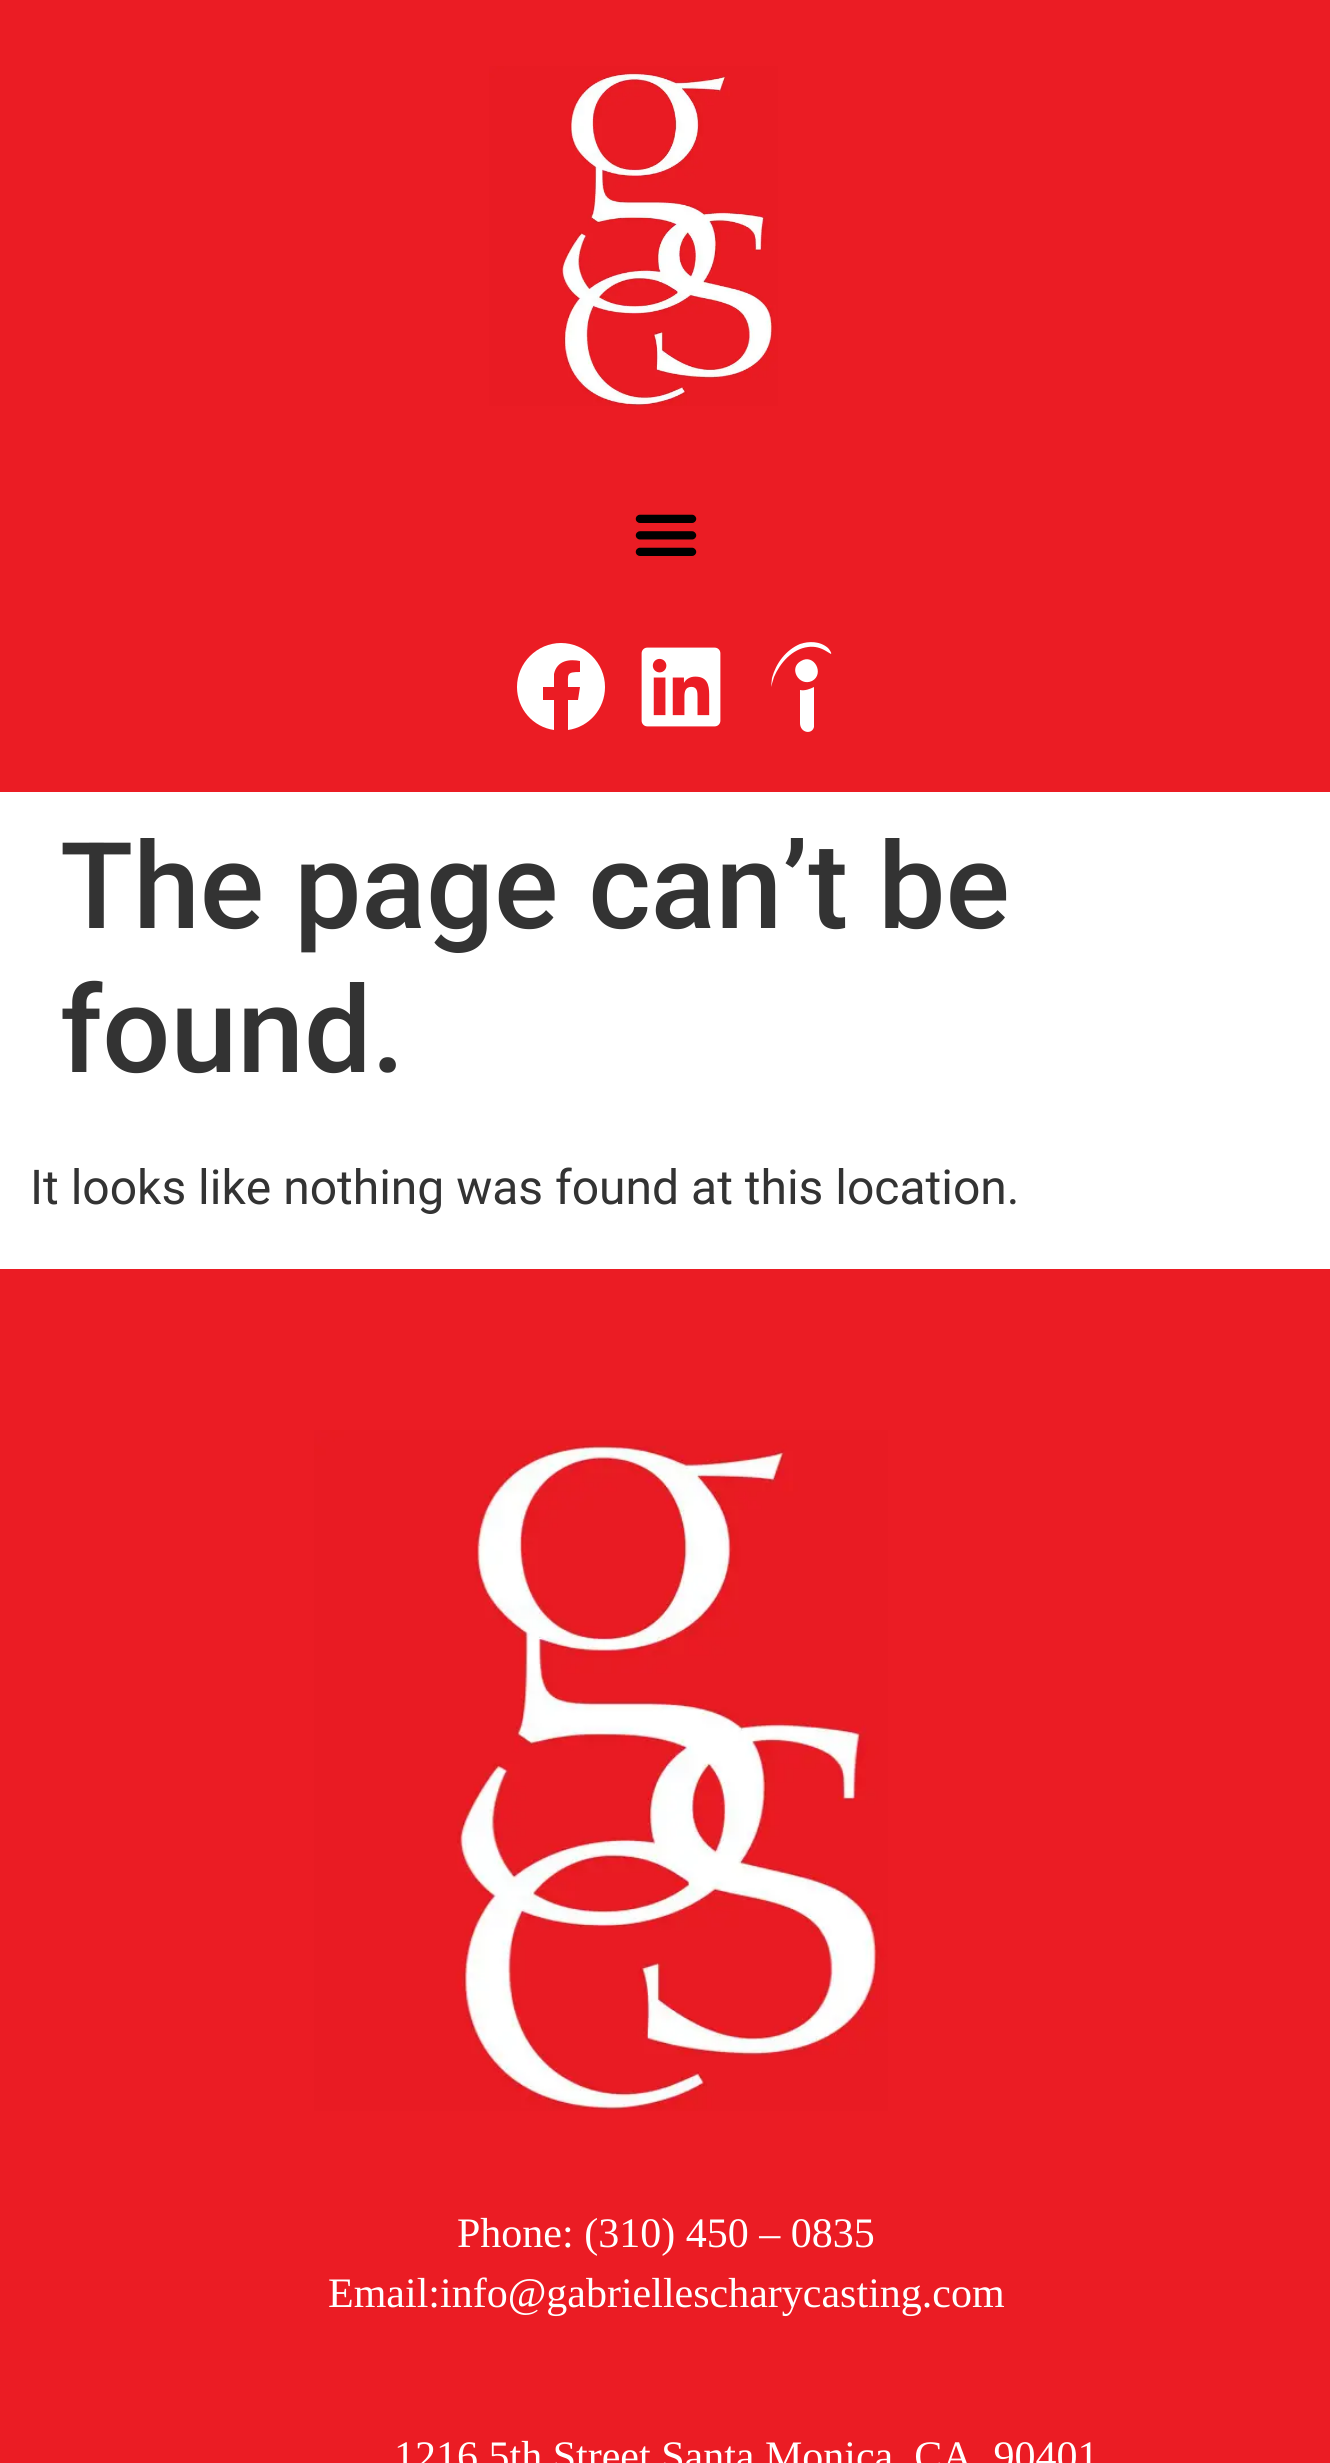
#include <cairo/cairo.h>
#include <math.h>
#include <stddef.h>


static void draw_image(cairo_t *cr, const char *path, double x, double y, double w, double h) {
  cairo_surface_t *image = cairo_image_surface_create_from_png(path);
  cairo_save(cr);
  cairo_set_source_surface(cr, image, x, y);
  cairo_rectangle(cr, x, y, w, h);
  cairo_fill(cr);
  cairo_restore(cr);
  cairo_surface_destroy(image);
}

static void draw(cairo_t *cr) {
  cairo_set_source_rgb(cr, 1, 1, 1);
  cairo_paint(cr);
  cairo_set_source_rgb(cr, 235 / 255.0, 28 / 255.0, 36 / 255.0);
  cairo_rectangle(cr, 0, 0, 1330, 792);
  cairo_fill(cr);
  draw_image(cr, "images/1.png", 489, 66, 289, 340);
  draw_image(cr, "images/2.png", 635, 514, 62, 42);
  cairo_set_source_rgb(cr, 1, 1, 1);
  cairo_new_path(cr);
  cairo_move_to(cr, 605, 687);
  cairo_curve_to(cr, 605, 663, 585, 643, 561, 643);
  cairo_curve_to(cr, 537, 643, 517, 663, 517, 687);
  cairo_curve_to(cr, 517, 709, 533, 727, 554, 730);
  cairo_line_to(cr, 554, 700);
  cairo_line_to(cr, 543, 700);
  cairo_line_to(cr, 543, 687);
  cairo_line_to(cr, 554, 687);
  cairo_line_to(cr, 554, 674);
  cairo_curve_to(cr, 557, 660, 570, 659, 580, 661);
  cairo_line_to(cr, 580, 672);
  cairo_curve_to(cr, 566, 672, 568, 674, 568, 687);
  cairo_line_to(cr, 580, 687);
  cairo_line_to(cr, 578, 700);
  cairo_line_to(cr, 568, 700);
  cairo_line_to(cr, 568, 730);
  cairo_curve_to(cr, 589, 727, 605, 709, 605, 687);
  cairo_close_path(cr);
  cairo_fill(cr);
  draw_image(cr, "images/3.png", 641, 647, 80, 80);
  cairo_new_path(cr);
  cairo_move_to(cr, 812, 681);
  cairo_curve_to(cr, 799, 687, 788, 668, 801, 661);
  cairo_curve_to(cr, 814, 653, 825, 674, 812, 681);
  cairo_close_path(cr);
  cairo_move_to(cr, 800, 644);
  cairo_curve_to(cr, 809, 641, 820, 641, 828, 648);
  cairo_curve_to(cr, 829, 649, 832, 653, 831, 654);
  cairo_line_to(cr, 826, 651);
  cairo_curve_to(cr, 821, 648, 815, 646, 808, 647);
  cairo_curve_to(cr, 792, 649, 780, 663, 774, 677);
  cairo_line_to(cr, 771, 687);
  cairo_line_to(cr, 772, 678);
  cairo_curve_to(cr, 776, 663, 786, 650, 800, 644);
  cairo_close_path(cr);
  cairo_move_to(cr, 800, 723);
  cairo_line_to(cr, 800, 690);
  cairo_curve_to(cr, 805, 691, 810, 689, 814, 687);
  cairo_line_to(cr, 814, 727);
  cairo_curve_to(cr, 812, 735, 800, 733, 800, 723);
  cairo_close_path(cr);
  cairo_fill(cr);
  cairo_set_source_rgb(cr, 235 / 255.0, 28 / 255.0, 36 / 255.0);
  cairo_rectangle(cr, 0, 1269, 1330, 1194);
  cairo_fill(cr);
  draw_image(cr, "images/4.png", 314, 1430, 574, 681);
  cairo_select_font_face(cr, "Roboto Medium", CAIRO_FONT_SLANT_NORMAL, CAIRO_FONT_WEIGHT_NORMAL);
  cairo_set_font_size(cr, 120);
  cairo_set_source_rgb(cr, 51 / 255.0, 51 / 255.0, 51 / 255.0);
  cairo_move_to(cr, 60, 928);
  cairo_show_text(cr, "The page can’t be");
  cairo_move_to(cr, 60, 1072);
  cairo_show_text(cr, "found.");
  cairo_select_font_face(cr, "Roboto", CAIRO_FONT_SLANT_NORMAL, CAIRO_FONT_WEIGHT_NORMAL);
  cairo_set_font_size(cr, 48);
  cairo_move_to(cr, 30, 1204);
  cairo_show_text(cr, "It looks like nothing was found at this location.");
  cairo_select_font_face(cr, "Liberation Serif", CAIRO_FONT_SLANT_NORMAL, CAIRO_FONT_WEIGHT_NORMAL);
  cairo_set_font_size(cr, 42);
  cairo_set_source_rgb(cr, 1, 1, 1);
  cairo_move_to(cr, 457, 2247);
  cairo_show_text(cr, "Phone: (310) 450 – 0835");
  cairo_move_to(cr, 328, 2307);
  cairo_show_text(cr, "Email:info@gabriellescharycasting.com");
  cairo_move_to(cr, 394, 2470);
  cairo_show_text(cr, "1216 5th Street Santa Monica, CA. 90401");
}

int main(void) {
  cairo_surface_t *surface = cairo_image_surface_create(CAIRO_FORMAT_RGB24, 1330, 2463);
  cairo_t *cr = cairo_create(surface);
  cairo_font_options_t *options = cairo_font_options_create();
  cairo_font_options_set_hint_metrics(options, CAIRO_HINT_METRICS_OFF);
  cairo_font_options_set_hint_style(options, CAIRO_HINT_STYLE_NONE);
  cairo_set_font_options(cr, options);
  cairo_set_miter_limit(cr, 4);
  draw(cr);
  cairo_surface_write_to_png(surface, "out.png");
  cairo_font_options_destroy(options);
  cairo_destroy(cr);
  cairo_surface_destroy(surface);
  return 0;
}
